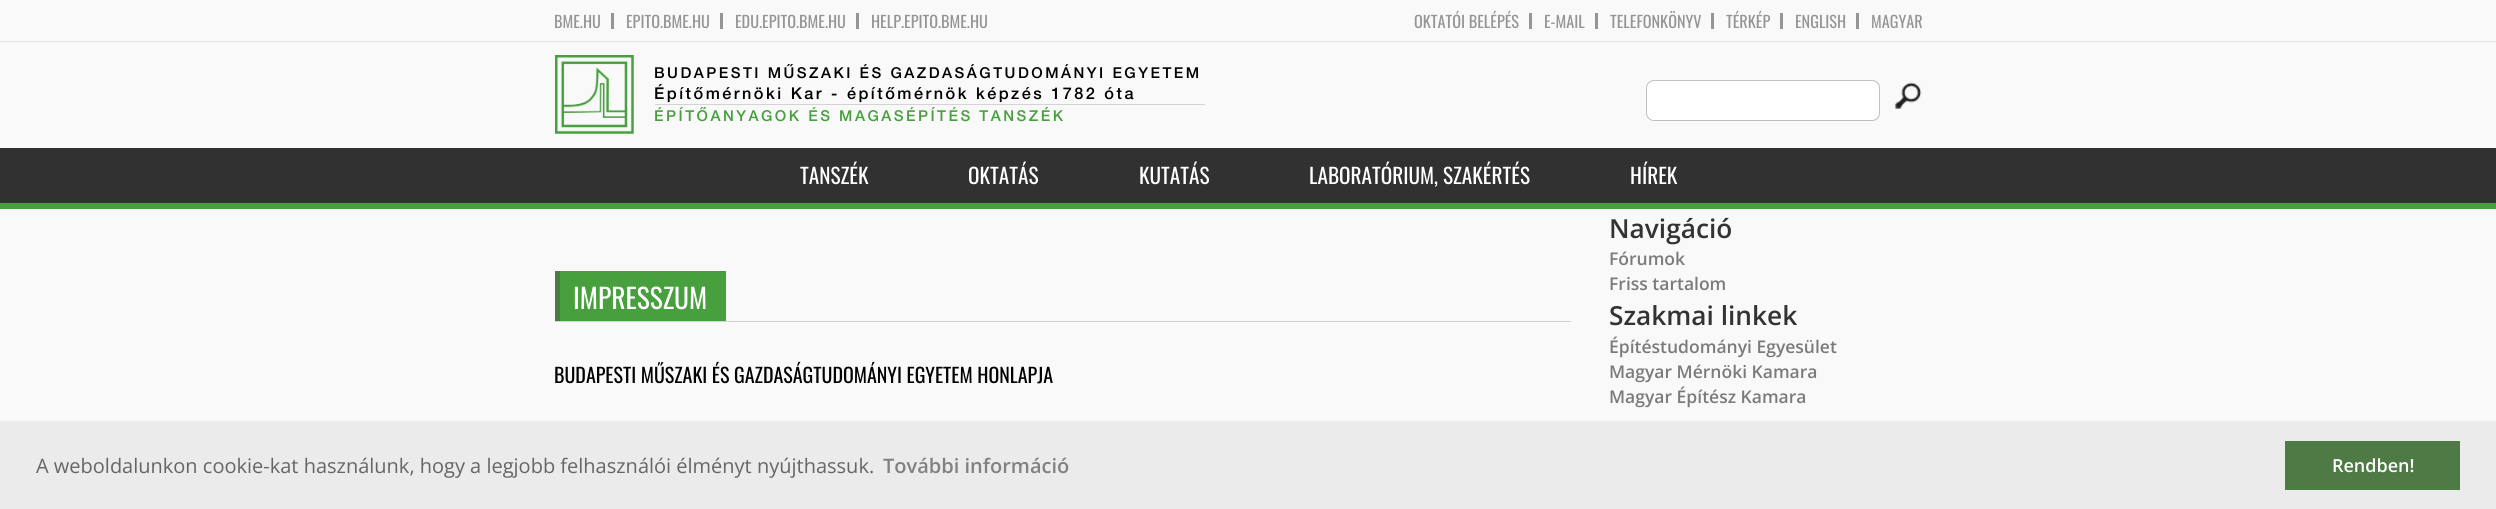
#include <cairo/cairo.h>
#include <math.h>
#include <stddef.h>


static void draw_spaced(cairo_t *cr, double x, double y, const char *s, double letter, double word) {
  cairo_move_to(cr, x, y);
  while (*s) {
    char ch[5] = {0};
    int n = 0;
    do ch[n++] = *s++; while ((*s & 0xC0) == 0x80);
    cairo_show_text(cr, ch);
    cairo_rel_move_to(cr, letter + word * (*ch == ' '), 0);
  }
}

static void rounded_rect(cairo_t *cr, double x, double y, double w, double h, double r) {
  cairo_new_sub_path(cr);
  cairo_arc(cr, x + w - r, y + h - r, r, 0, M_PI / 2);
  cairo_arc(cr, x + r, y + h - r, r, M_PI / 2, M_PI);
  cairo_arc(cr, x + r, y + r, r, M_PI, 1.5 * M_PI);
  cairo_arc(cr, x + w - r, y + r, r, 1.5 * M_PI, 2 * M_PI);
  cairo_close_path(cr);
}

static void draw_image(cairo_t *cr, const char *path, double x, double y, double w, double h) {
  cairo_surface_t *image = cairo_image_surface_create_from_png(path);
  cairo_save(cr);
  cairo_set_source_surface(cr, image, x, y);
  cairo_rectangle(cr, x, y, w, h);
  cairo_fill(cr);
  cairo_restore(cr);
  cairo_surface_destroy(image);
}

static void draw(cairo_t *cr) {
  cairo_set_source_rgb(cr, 249 / 255.0, 249 / 255.0, 250 / 255.0);
  cairo_paint(cr);
  cairo_set_source_rgb(cr, 228 / 255.0, 227 / 255.0, 227 / 255.0);
  cairo_rectangle(cr, 0, 41, 2496, 1);
  cairo_fill(cr);
  cairo_set_source_rgb(cr, 149 / 255.0, 149 / 255.0, 149 / 255.0);
  cairo_rectangle(cr, 611, 13, 3, 16);
  cairo_fill(cr);
  cairo_rectangle(cr, 720, 13, 3, 16);
  cairo_fill(cr);
  cairo_rectangle(cr, 856, 13, 3, 16);
  cairo_fill(cr);
  cairo_rectangle(cr, 1529, 13, 3, 16);
  cairo_fill(cr);
  cairo_rectangle(cr, 1595, 13, 3, 16);
  cairo_fill(cr);
  cairo_rectangle(cr, 1711, 13, 3, 16);
  cairo_fill(cr);
  cairo_rectangle(cr, 1780, 13, 3, 16);
  cairo_fill(cr);
  cairo_rectangle(cr, 1856, 13, 3, 16);
  cairo_fill(cr);
  draw_image(cr, "images/1.png", 555, 55, 79, 79);
  cairo_set_source_rgb(cr, 211 / 255.0, 211 / 255.0, 211 / 255.0);
  cairo_rectangle(cr, 655, 104, 550, 1);
  cairo_fill(cr);
  cairo_set_source_rgb(cr, 1, 1, 1);
  rounded_rect(cr, 1646.5, 80.5, 233, 40, 7.5);
  cairo_fill_preserve(cr);
  cairo_set_source_rgb(cr, 191 / 255.0, 191 / 255.0, 191 / 255.0);
  cairo_set_line_width(cr, 1);
  cairo_stroke(cr);
  draw_image(cr, "images/2.png", 1894, 82, 28, 27);
  cairo_set_source_rgb(cr, 49 / 255.0, 49 / 255.0, 49 / 255.0);
  cairo_rectangle(cr, 0, 148, 2496, 55);
  cairo_fill(cr);
  cairo_set_source_rgb(cr, 71 / 255.0, 159 / 255.0, 61 / 255.0);
  cairo_rectangle(cr, 0, 203, 2496, 6);
  cairo_fill(cr);
  cairo_set_source_rgb(cr, 210 / 255.0, 210 / 255.0, 210 / 255.0);
  cairo_rectangle(cr, 555, 321, 1016, 1);
  cairo_fill(cr);
  cairo_set_source_rgb(cr, 71 / 255.0, 159 / 255.0, 61 / 255.0);
  cairo_rectangle(cr, 560, 271, 166, 50);
  cairo_fill(cr);
  cairo_set_source_rgb(cr, 78 / 255.0, 122 / 255.0, 69 / 255.0);
  cairo_rectangle(cr, 555, 271, 5, 50);
  cairo_fill(cr);
  cairo_set_source_rgb(cr, 235 / 255.0, 235 / 255.0, 235 / 255.0);
  cairo_rectangle(cr, 0, 421, 2496, 88);
  cairo_fill(cr);
  cairo_set_source_rgb(cr, 78 / 255.0, 122 / 255.0, 69 / 255.0);
  cairo_rectangle(cr, 2285, 441, 175, 49);
  cairo_fill(cr);
  cairo_select_font_face(cr, "Oswald", CAIRO_FONT_SLANT_NORMAL, CAIRO_FONT_WEIGHT_NORMAL);
  cairo_set_font_size(cr, 16.25);
  cairo_set_source_rgb(cr, 149 / 255.0, 149 / 255.0, 149 / 255.0);
  cairo_move_to(cr, 554, 28);
  cairo_show_text(cr, "BME.HU");
  cairo_move_to(cr, 626, 28);
  cairo_show_text(cr, "EPITO.BME.HU");
  cairo_move_to(cr, 735, 28);
  cairo_show_text(cr, "EDU.EPITO.BME.HU");
  cairo_move_to(cr, 871, 28);
  cairo_show_text(cr, "HELP.EPITO.BME.HU");
  cairo_move_to(cr, 1414, 28);
  cairo_show_text(cr, "OKTATÓI BELÉPÉS");
  cairo_move_to(cr, 1544, 28);
  cairo_show_text(cr, "E-MAIL");
  cairo_move_to(cr, 1610, 28);
  cairo_show_text(cr, "TELEFONKÖNYV");
  cairo_move_to(cr, 1726, 28);
  cairo_show_text(cr, "TÉRKÉP");
  cairo_move_to(cr, 1795, 28);
  cairo_show_text(cr, "ENGLISH");
  cairo_move_to(cr, 1871, 28);
  cairo_show_text(cr, "MAGYAR");
  cairo_select_font_face(cr, "Helvetica Neue Medium", CAIRO_FONT_SLANT_NORMAL, CAIRO_FONT_WEIGHT_NORMAL);
  cairo_set_font_size(cr, 15);
  cairo_set_source_rgb(cr, 0, 0, 0);
  draw_spaced(cr, 654, 78, "BUDAPESTI MŰSZAKI ÉS GAZDASÁGTUDOMÁNYI EGYETEM", 2.5, 0);
  cairo_set_font_size(cr, 16.25);
  draw_spaced(cr, 654, 99, "Építőmérnöki Kar - építőmérnök képzés 1782 óta", 2.5, 0);
  cairo_set_font_size(cr, 15);
  cairo_set_source_rgb(cr, 71 / 255.0, 159 / 255.0, 61 / 255.0);
  draw_spaced(cr, 654, 121, "ÉPÍTŐANYAGOK ÉS MAGASÉPÍTÉS TANSZÉK", 2.5, 0);
  cairo_select_font_face(cr, "Oswald", CAIRO_FONT_SLANT_NORMAL, CAIRO_FONT_WEIGHT_NORMAL);
  cairo_set_font_size(cr, 21.25);
  cairo_set_source_rgb(cr, 1, 1, 1);
  cairo_move_to(cr, 800, 184);
  cairo_show_text(cr, "TANSZÉK");
  cairo_move_to(cr, 968, 184);
  cairo_show_text(cr, "OKTATÁS");
  cairo_move_to(cr, 1139, 184);
  cairo_show_text(cr, "KUTATÁS");
  cairo_move_to(cr, 1309, 184);
  cairo_show_text(cr, "LABORATÓRIUM, SZAKÉRTÉS");
  cairo_move_to(cr, 1630, 184);
  cairo_show_text(cr, "HÍREK");
  cairo_set_font_size(cr, 27.5);
  cairo_move_to(cr, 573, 309);
  cairo_show_text(cr, "IMPRESSZUM");
  cairo_set_font_size(cr, 20);
  cairo_set_source_rgb(cr, 0, 0, 0);
  cairo_move_to(cr, 554, 383);
  cairo_show_text(cr, "BUDAPESTI MŰSZAKI ÉS GAZDASÁGTUDOMÁNYI EGYETEM HONLAPJA");
  cairo_select_font_face(cr, "Open Sans SemiBold", CAIRO_FONT_SLANT_NORMAL, CAIRO_FONT_WEIGHT_NORMAL);
  cairo_set_font_size(cr, 26.25);
  cairo_set_source_rgb(cr, 51 / 255.0, 51 / 255.0, 51 / 255.0);
  cairo_move_to(cr, 1609, 238);
  cairo_show_text(cr, "Navigáció");
  cairo_set_font_size(cr, 17.5);
  cairo_set_source_rgb(cr, 123 / 255.0, 123 / 255.0, 123 / 255.0);
  cairo_move_to(cr, 1609, 265);
  cairo_show_text(cr, "Fórumok");
  cairo_move_to(cr, 1609, 290);
  cairo_show_text(cr, "Friss tartalom");
  cairo_set_font_size(cr, 26.25);
  cairo_set_source_rgb(cr, 51 / 255.0, 51 / 255.0, 51 / 255.0);
  cairo_move_to(cr, 1609, 325);
  cairo_show_text(cr, "Szakmai linkek");
  cairo_set_font_size(cr, 17.5);
  cairo_set_source_rgb(cr, 123 / 255.0, 123 / 255.0, 123 / 255.0);
  cairo_move_to(cr, 1609, 353);
  cairo_show_text(cr, "Építéstudományi Egyesület");
  cairo_move_to(cr, 1609, 378);
  cairo_show_text(cr, "Magyar Mérnöki Kamara");
  cairo_move_to(cr, 1609, 403);
  cairo_show_text(cr, "Magyar Építész Kamara");
  cairo_select_font_face(cr, "Open Sans", CAIRO_FONT_SLANT_NORMAL, CAIRO_FONT_WEIGHT_NORMAL);
  cairo_set_font_size(cr, 20);
  cairo_set_source_rgb(cr, 102 / 255.0, 102 / 255.0, 102 / 255.0);
  cairo_move_to(cr, 36, 473);
  cairo_show_text(cr, "A weboldalunkon cookie-kat használunk, hogy a legjobb felhasználói élményt nyújthassuk.");
  cairo_select_font_face(cr, "Open Sans SemiBold", CAIRO_FONT_SLANT_NORMAL, CAIRO_FONT_WEIGHT_NORMAL);
  cairo_set_source_rgb(cr, 129 / 255.0, 129 / 255.0, 129 / 255.0);
  cairo_move_to(cr, 883, 473);
  cairo_show_text(cr, "További információ");
  cairo_set_font_size(cr, 18);
  cairo_set_source_rgb(cr, 1, 1, 1);
  cairo_move_to(cr, 2332, 472);
  cairo_show_text(cr, "Rendben!");
}

int main(void) {
  cairo_surface_t *surface = cairo_image_surface_create(CAIRO_FORMAT_RGB24, 2496, 509);
  cairo_t *cr = cairo_create(surface);
  cairo_font_options_t *options = cairo_font_options_create();
  cairo_font_options_set_hint_metrics(options, CAIRO_HINT_METRICS_OFF);
  cairo_font_options_set_hint_style(options, CAIRO_HINT_STYLE_NONE);
  cairo_set_font_options(cr, options);
  cairo_set_miter_limit(cr, 4);
  draw(cr);
  cairo_surface_write_to_png(surface, "out.png");
  cairo_font_options_destroy(options);
  cairo_destroy(cr);
  cairo_surface_destroy(surface);
  return 0;
}
